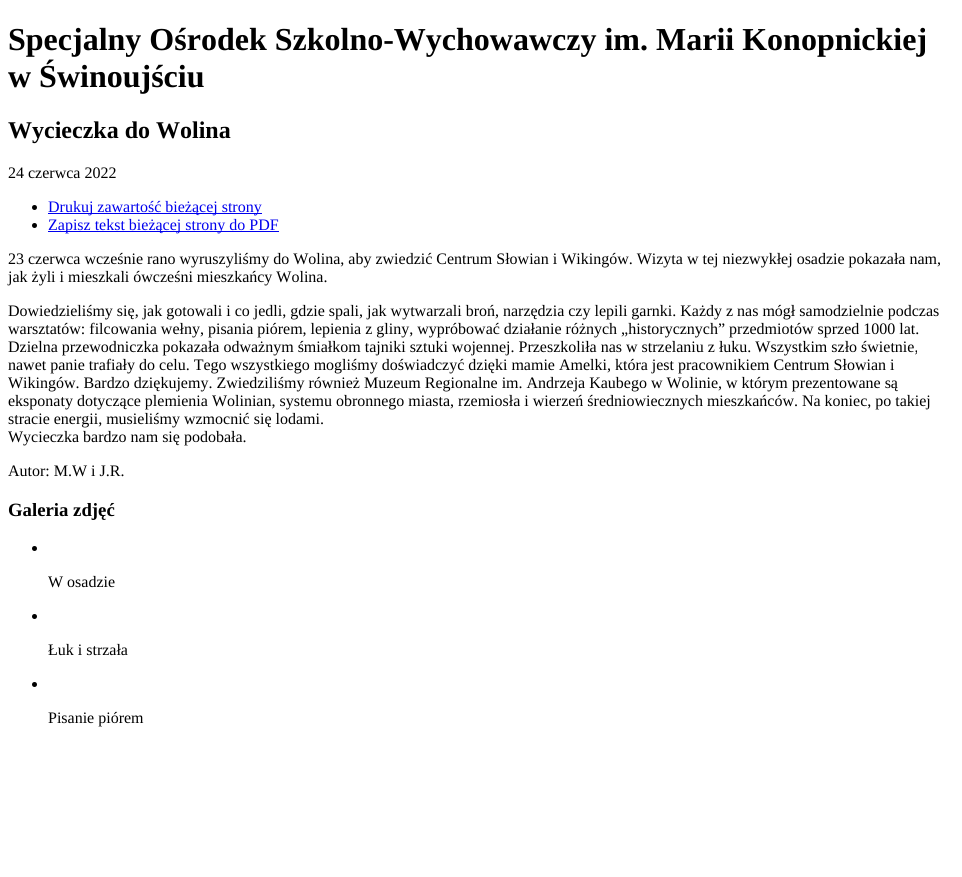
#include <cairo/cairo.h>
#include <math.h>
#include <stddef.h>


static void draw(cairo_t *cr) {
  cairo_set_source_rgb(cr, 1, 1, 1);
  cairo_paint(cr);
  cairo_set_source_rgb(cr, 0, 0, 0);
  cairo_arc(cr, 34.5, 207.5, 2.5, 0, 2 * M_PI);
  cairo_fill(cr);
  cairo_set_source_rgb(cr, 0, 0, 238 / 255.0);
  cairo_rectangle(cr, 48, 213, 214, 1);
  cairo_fill(cr);
  cairo_set_source_rgb(cr, 0, 0, 0);
  cairo_arc(cr, 34.5, 225.5, 2.5, 0, 2 * M_PI);
  cairo_fill(cr);
  cairo_set_source_rgb(cr, 0, 0, 238 / 255.0);
  cairo_rectangle(cr, 48, 231, 231, 1);
  cairo_fill(cr);
  cairo_set_source_rgb(cr, 0, 0, 0);
  cairo_arc(cr, 34.5, 548.5, 2.5, 0, 2 * M_PI);
  cairo_fill(cr);
  cairo_arc(cr, 34.5, 616.5, 2.5, 0, 2 * M_PI);
  cairo_fill(cr);
  cairo_arc(cr, 34.5, 684.5, 2.5, 0, 2 * M_PI);
  cairo_fill(cr);
  cairo_select_font_face(cr, "Liberation Serif", CAIRO_FONT_SLANT_NORMAL, CAIRO_FONT_WEIGHT_BOLD);
  cairo_set_font_size(cr, 32);
  cairo_move_to(cr, 8, 50);
  cairo_show_text(cr, "Specjalny Ośrodek Szkolno-Wychowawczy im. Marii Konopnickiej");
  cairo_move_to(cr, 8, 87);
  cairo_show_text(cr, "w Świnoujściu");
  cairo_set_font_size(cr, 24);
  cairo_move_to(cr, 8, 138);
  cairo_show_text(cr, "Wycieczka do Wolina");
  cairo_select_font_face(cr, "Liberation Serif", CAIRO_FONT_SLANT_NORMAL, CAIRO_FONT_WEIGHT_NORMAL);
  cairo_set_font_size(cr, 16);
  cairo_move_to(cr, 8, 178);
  cairo_show_text(cr, "24 czerwca 2022");
  cairo_set_source_rgb(cr, 0, 0, 238 / 255.0);
  cairo_move_to(cr, 48, 212);
  cairo_show_text(cr, "Drukuj zawartość bieżącej strony");
  cairo_move_to(cr, 48, 230);
  cairo_show_text(cr, "Zapisz tekst bieżącej strony do PDF");
  cairo_set_source_rgb(cr, 0, 0, 0);
  cairo_move_to(cr, 8, 264);
  cairo_show_text(cr, "23 czerwca wcześnie rano wyruszyliśmy do Wolina, aby zwiedzić Centrum Słowian i Wikingów. Wizyta w tej niezwykłej osadzie pokazała nam,");
  cairo_move_to(cr, 8, 282);
  cairo_show_text(cr, "jak żyli i mieszkali ówcześni mieszkańcy Wolina.");
  cairo_move_to(cr, 8, 316);
  cairo_show_text(cr, "Dowiedzieliśmy się, jak gotowali i co jedli, gdzie spali, jak wytwarzali broń, narzędzia czy lepili garnki. Każdy z nas mógł samodzielnie podczas");
  cairo_move_to(cr, 8, 334);
  cairo_show_text(cr, "warsztatów: filcowania wełny, pisania piórem, lepienia z gliny, wypróbować działanie różnych „historycznych” przedmiotów sprzed 1000 lat.");
  cairo_move_to(cr, 8, 352);
  cairo_show_text(cr, "Dzielna przewodniczka pokazała odważnym śmiałkom tajniki sztuki wojennej. Przeszkoliła nas w strzelaniu z łuku. Wszystkim szło świetnie,");
  cairo_move_to(cr, 8, 370);
  cairo_show_text(cr, "nawet panie trafiały do celu. Tego wszystkiego mogliśmy doświadczyć dzięki mamie Amelki, która jest pracownikiem Centrum Słowian i");
  cairo_move_to(cr, 8, 388);
  cairo_show_text(cr, "Wikingów. Bardzo dziękujemy. Zwiedziliśmy również Muzeum Regionalne im. Andrzeja Kaubego w Wolinie, w którym prezentowane są");
  cairo_move_to(cr, 8, 406);
  cairo_show_text(cr, "eksponaty dotyczące plemienia Wolinian, systemu obronnego miasta, rzemiosła i wierzeń średniowiecznych mieszkańców. Na koniec, po takiej");
  cairo_move_to(cr, 8, 424);
  cairo_show_text(cr, "stracie energii, musieliśmy wzmocnić się lodami.");
  cairo_move_to(cr, 8, 442);
  cairo_show_text(cr, "Wycieczka bardzo nam się podobała.");
  cairo_move_to(cr, 8, 476);
  cairo_show_text(cr, "Autor: M.W i J.R.");
  cairo_select_font_face(cr, "Liberation Serif", CAIRO_FONT_SLANT_NORMAL, CAIRO_FONT_WEIGHT_BOLD);
  cairo_set_font_size(cr, 18.75);
  cairo_move_to(cr, 8, 516);
  cairo_show_text(cr, "Galeria zdjęć");
  cairo_select_font_face(cr, "Liberation Serif", CAIRO_FONT_SLANT_NORMAL, CAIRO_FONT_WEIGHT_NORMAL);
  cairo_set_font_size(cr, 16);
  cairo_move_to(cr, 48, 587);
  cairo_show_text(cr, "W osadzie");
  cairo_move_to(cr, 48, 655);
  cairo_show_text(cr, "Łuk i strzała");
  cairo_move_to(cr, 48, 723);
  cairo_show_text(cr, "Pisanie piórem");
}

int main(void) {
  cairo_surface_t *surface = cairo_image_surface_create(CAIRO_FORMAT_RGB24, 962, 877);
  cairo_t *cr = cairo_create(surface);
  cairo_font_options_t *options = cairo_font_options_create();
  cairo_font_options_set_hint_metrics(options, CAIRO_HINT_METRICS_OFF);
  cairo_font_options_set_hint_style(options, CAIRO_HINT_STYLE_NONE);
  cairo_set_font_options(cr, options);
  cairo_set_miter_limit(cr, 4);
  draw(cr);
  cairo_surface_write_to_png(surface, "out.png");
  cairo_font_options_destroy(options);
  cairo_destroy(cr);
  cairo_surface_destroy(surface);
  return 0;
}
